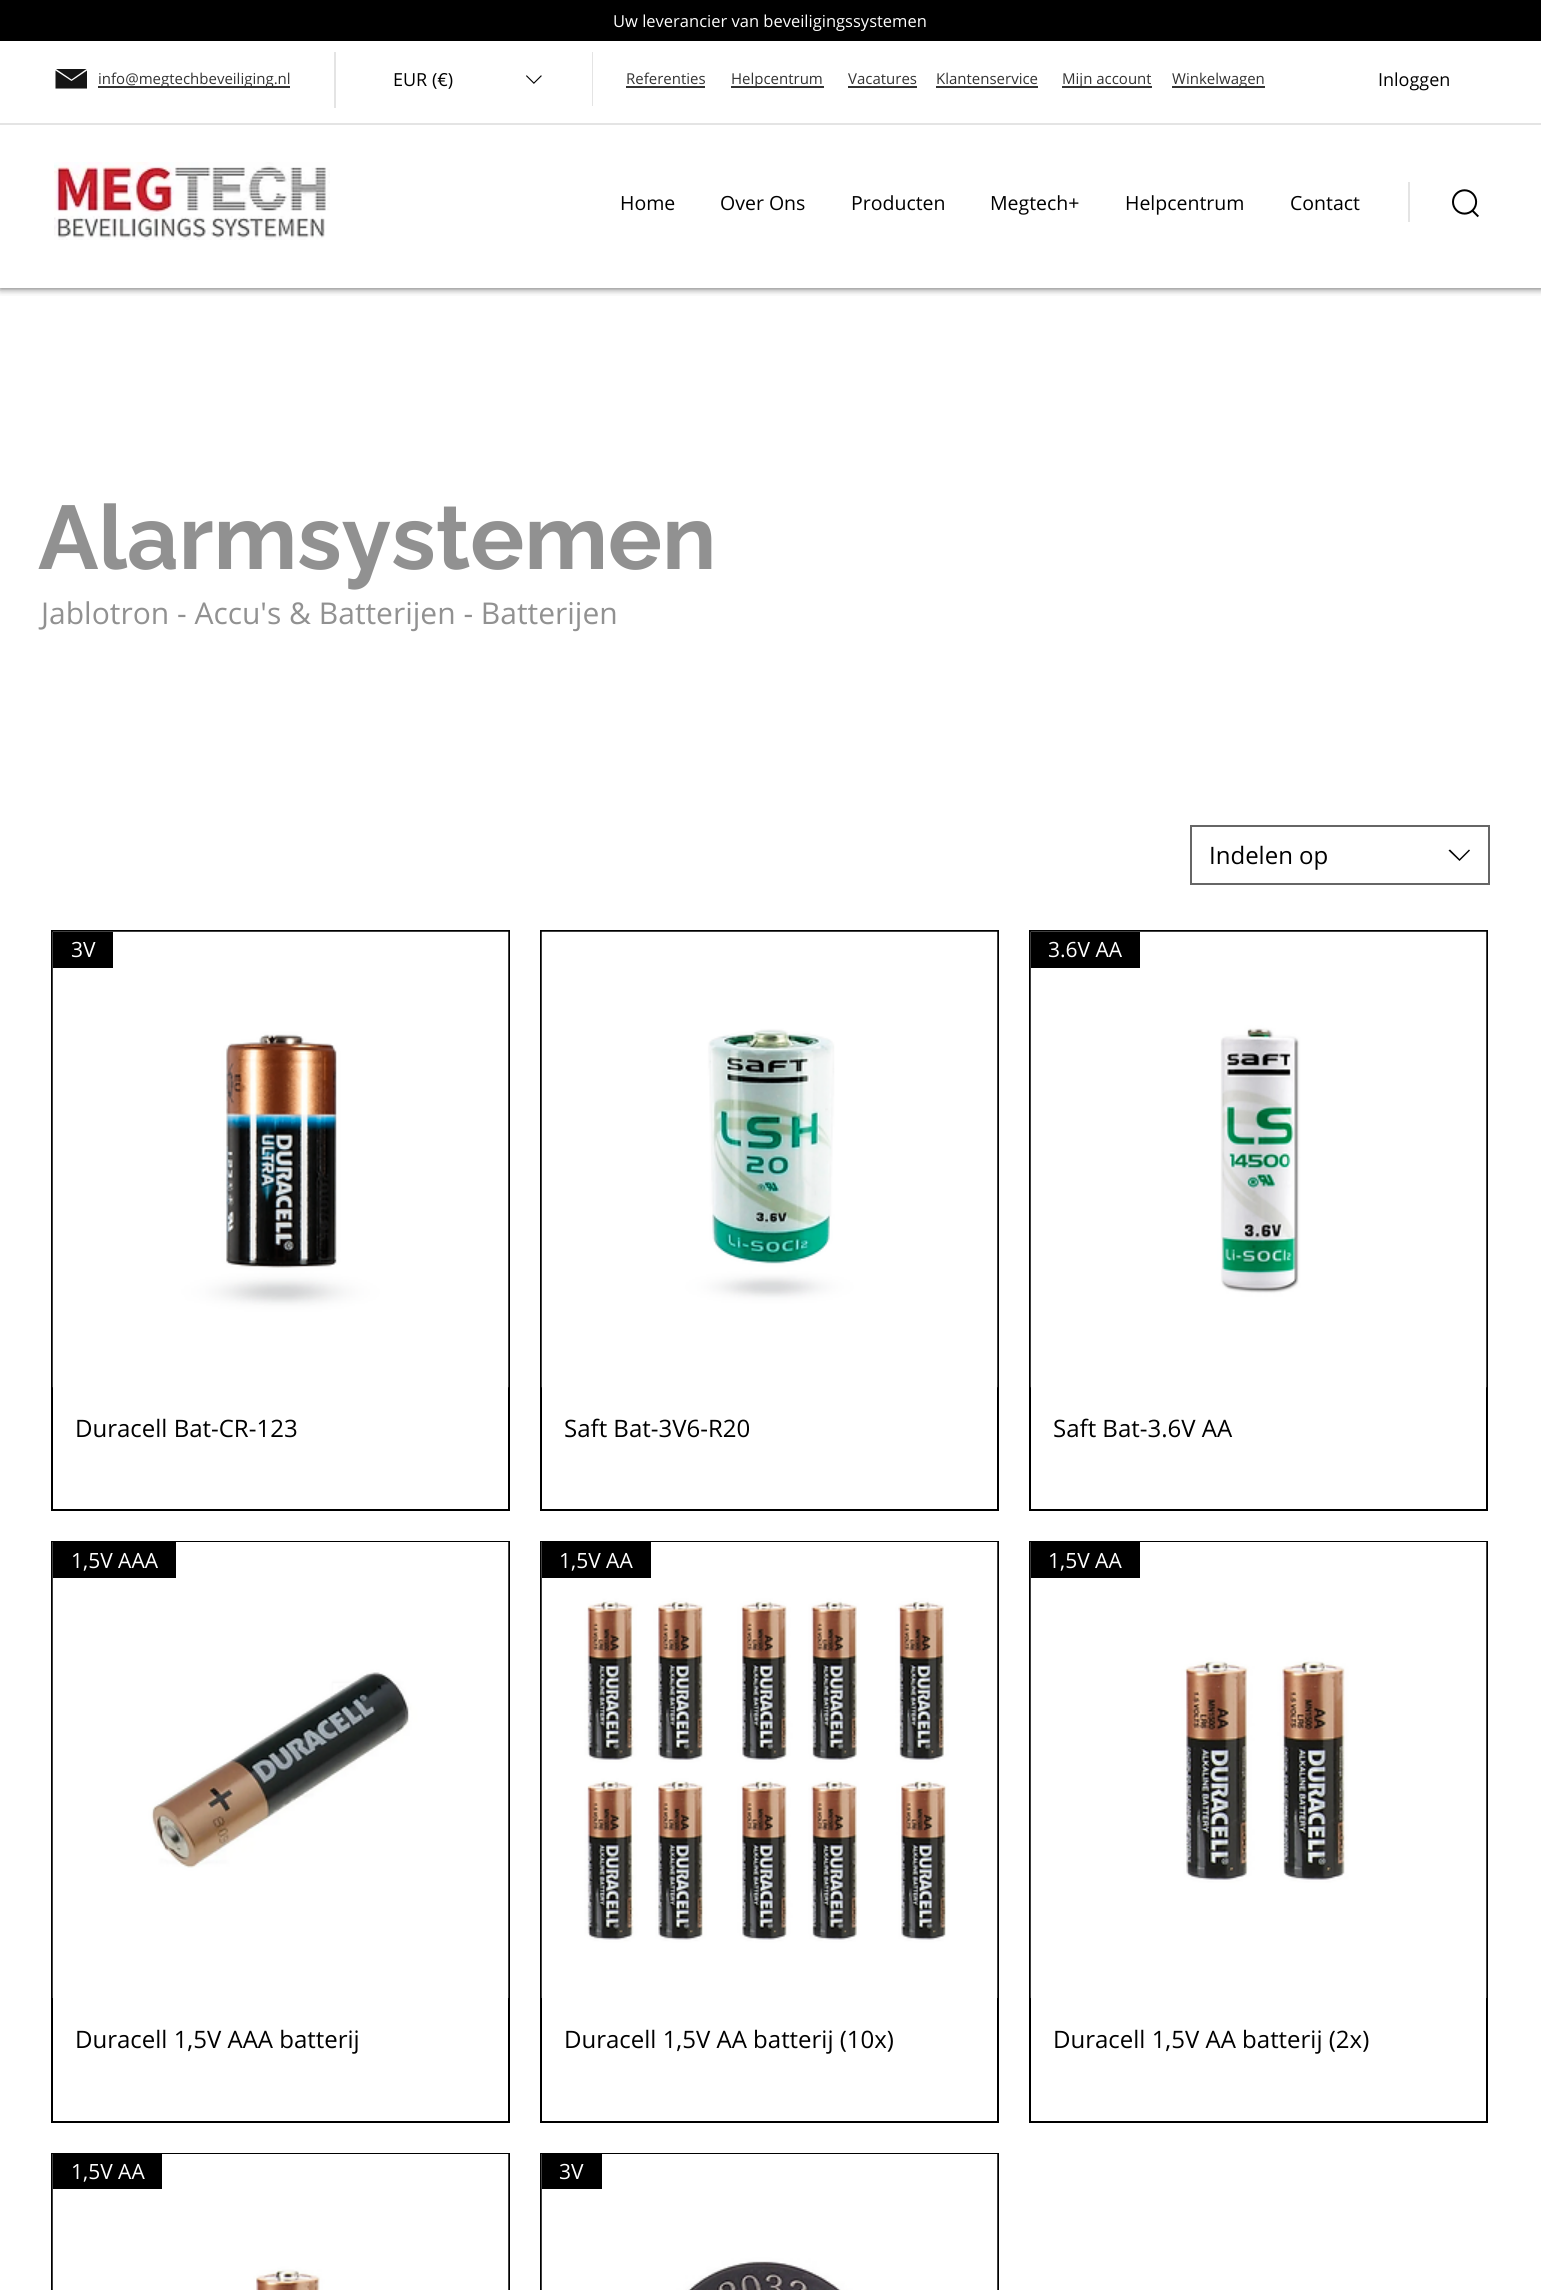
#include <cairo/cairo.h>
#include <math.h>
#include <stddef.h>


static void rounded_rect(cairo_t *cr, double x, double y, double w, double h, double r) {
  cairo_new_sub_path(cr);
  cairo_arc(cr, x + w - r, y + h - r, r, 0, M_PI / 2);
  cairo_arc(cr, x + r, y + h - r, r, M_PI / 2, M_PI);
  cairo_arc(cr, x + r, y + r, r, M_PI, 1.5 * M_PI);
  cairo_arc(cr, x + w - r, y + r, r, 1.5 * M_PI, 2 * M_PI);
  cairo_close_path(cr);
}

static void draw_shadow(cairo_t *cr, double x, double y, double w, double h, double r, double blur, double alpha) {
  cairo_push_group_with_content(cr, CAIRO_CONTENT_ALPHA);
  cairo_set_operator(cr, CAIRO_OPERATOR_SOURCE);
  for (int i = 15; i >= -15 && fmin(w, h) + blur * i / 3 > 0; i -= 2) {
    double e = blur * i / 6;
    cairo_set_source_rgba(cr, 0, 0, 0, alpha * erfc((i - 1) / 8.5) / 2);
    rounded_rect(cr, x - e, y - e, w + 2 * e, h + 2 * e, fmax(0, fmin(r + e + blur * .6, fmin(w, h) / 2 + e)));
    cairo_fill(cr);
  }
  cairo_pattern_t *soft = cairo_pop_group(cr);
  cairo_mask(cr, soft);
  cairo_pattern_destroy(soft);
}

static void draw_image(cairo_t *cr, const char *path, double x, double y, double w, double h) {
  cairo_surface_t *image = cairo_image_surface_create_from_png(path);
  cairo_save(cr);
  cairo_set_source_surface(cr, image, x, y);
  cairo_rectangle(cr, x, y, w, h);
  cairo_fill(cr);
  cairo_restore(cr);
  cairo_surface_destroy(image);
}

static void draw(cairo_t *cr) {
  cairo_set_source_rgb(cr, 1, 1, 1);
  cairo_paint(cr);
  cairo_save(cr);
  cairo_rectangle(cr, 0, 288, 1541, 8);
  cairo_clip(cr);
  cairo_set_source_rgb(cr, 0, 0, 0);
  draw_shadow(cr, 0, 0, 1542, 288, 0, 4, 0.7);
  cairo_restore(cr);
  cairo_set_source_rgb(cr, 0, 0, 0);
  cairo_rectangle(cr, 0, 0, 1541, 41);
  cairo_fill(cr);
  cairo_set_source_rgb(cr, 22 / 255.0, 22 / 255.0, 22 / 255.0);
  cairo_new_path(cr);
  cairo_move_to(cr, 71.5, 79.5);
  cairo_line_to(cr, 56, 69);
  cairo_line_to(cr, 86.5, 69);
  cairo_close_path(cr);
  cairo_move_to(cr, 87, 70.5);
  cairo_line_to(cr, 71.5, 81);
  cairo_line_to(cr, 55.5, 70.5);
  cairo_line_to(cr, 55.5, 88.5);
  cairo_line_to(cr, 87, 88.5);
  cairo_close_path(cr);
  cairo_fill(cr);
  cairo_set_source_rgb(cr, 51 / 255.0, 51 / 255.0, 51 / 255.0);
  cairo_rectangle(cr, 98, 86, 192, 2);
  cairo_fill(cr);
  cairo_set_source_rgb(cr, 228 / 255.0, 228 / 255.0, 228 / 255.0);
  cairo_rectangle(cr, 334, 52, 2, 56);
  cairo_fill(cr);
  draw_image(cr, "images/1.png", 526, 75, 16, 9);
  cairo_rectangle(cr, 592, 52, 1, 54);
  cairo_fill(cr);
  cairo_set_source_rgb(cr, 51 / 255.0, 51 / 255.0, 51 / 255.0);
  cairo_rectangle(cr, 626, 86, 79, 2);
  cairo_fill(cr);
  cairo_rectangle(cr, 731, 86, 93, 2);
  cairo_fill(cr);
  cairo_rectangle(cr, 848, 86, 69, 2);
  cairo_fill(cr);
  cairo_rectangle(cr, 936, 86, 102, 2);
  cairo_fill(cr);
  cairo_rectangle(cr, 1062, 86, 90, 2);
  cairo_fill(cr);
  cairo_rectangle(cr, 1172, 86, 93, 2);
  cairo_fill(cr);
  cairo_set_source_rgb(cr, 228 / 255.0, 228 / 255.0, 228 / 255.0);
  cairo_rectangle(cr, 0, 123, 1541, 2);
  cairo_fill(cr);
  draw_image(cr, "images/2.png", 54, 162, 276, 78);
  cairo_rectangle(cr, 1408, 182, 2, 40);
  cairo_fill(cr);
  draw_image(cr, "images/3.png", 1452, 189, 27, 29);
  cairo_rectangle(cr, 1191, 826, 298, 58);
  cairo_set_source_rgb(cr, 102 / 255.0, 102 / 255.0, 102 / 255.0);
  cairo_stroke(cr);
  cairo_set_source_rgb(cr, 0, 0, 0);
  cairo_set_fill_rule(cr, CAIRO_FILL_RULE_EVEN_ODD);
  cairo_new_path(cr);
  cairo_move_to(cr, 1469, 849.5);
  cairo_line_to(cr, 1470, 850.5);
  cairo_line_to(cr, 1459.5, 861);
  cairo_line_to(cr, 1448.5, 850.5);
  cairo_line_to(cr, 1450, 849.5);
  cairo_line_to(cr, 1459.5, 859);
  cairo_close_path(cr);
  cairo_fill(cr);
  cairo_rectangle(cr, 52, 931, 457, 579);
  cairo_stroke(cr);
  draw_image(cr, "images/4.png", 52, 931, 457, 457);
  cairo_rectangle(cr, 53, 932, 60, 36);
  cairo_fill(cr);
  cairo_rectangle(cr, 541, 931, 457, 579);
  cairo_stroke(cr);
  draw_image(cr, "images/5.png", 541, 931, 457, 457);
  cairo_rectangle(cr, 1030, 931, 457, 579);
  cairo_stroke(cr);
  draw_image(cr, "images/6.png", 1030, 931, 457, 457);
  cairo_rectangle(cr, 1031, 932, 109, 36);
  cairo_fill(cr);
  cairo_rectangle(cr, 52, 1542, 457, 580);
  cairo_stroke(cr);
  draw_image(cr, "images/7.png", 52, 1542, 457, 456);
  cairo_rectangle(cr, 53, 1542, 123, 36);
  cairo_fill(cr);
  cairo_rectangle(cr, 541, 1542, 457, 580);
  cairo_stroke(cr);
  draw_image(cr, "images/8.png", 541, 1542, 457, 456);
  cairo_rectangle(cr, 542, 1542, 109, 36);
  cairo_fill(cr);
  cairo_rectangle(cr, 1030, 1542, 457, 580);
  cairo_stroke(cr);
  draw_image(cr, "images/9.png", 1030, 1542, 457, 456);
  cairo_rectangle(cr, 1031, 1542, 109, 36);
  cairo_fill(cr);
  cairo_rectangle(cr, 52, 2154, 457, 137);
  cairo_stroke(cr);
  draw_image(cr, "images/10.png", 52, 2154, 457, 136);
  cairo_rectangle(cr, 53, 2154, 109, 35);
  cairo_fill(cr);
  cairo_rectangle(cr, 541, 2154, 457, 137);
  cairo_stroke(cr);
  draw_image(cr, "images/11.png", 541, 2154, 457, 136);
  cairo_rectangle(cr, 542, 2154, 60, 35);
  cairo_fill(cr);
  cairo_select_font_face(cr, "Open Sans", CAIRO_FONT_SLANT_NORMAL, CAIRO_FONT_WEIGHT_NORMAL);
  cairo_set_font_size(cr, 16.5);
  cairo_set_source_rgb(cr, 1, 1, 1);
  cairo_move_to(cr, 613, 27);
  cairo_show_text(cr, "Uw leverancier van beveiligingssystemen");
  cairo_set_font_size(cr, 15);
  cairo_set_source_rgb(cr, 51 / 255.0, 51 / 255.0, 51 / 255.0);
  cairo_move_to(cr, 98, 84);
  cairo_show_text(cr, "info@megtechbeveiliging.nl");
  cairo_set_font_size(cr, 18);
  cairo_set_source_rgb(cr, 0, 0, 0);
  cairo_move_to(cr, 393, 86);
  cairo_show_text(cr, "EUR (€)");
  cairo_set_font_size(cr, 15);
  cairo_set_source_rgb(cr, 51 / 255.0, 51 / 255.0, 51 / 255.0);
  cairo_move_to(cr, 626, 84);
  cairo_show_text(cr, "Referenties");
  cairo_move_to(cr, 731, 84);
  cairo_show_text(cr, "Helpcentrum");
  cairo_move_to(cr, 848, 84);
  cairo_show_text(cr, "Vacatures");
  cairo_move_to(cr, 936, 84);
  cairo_show_text(cr, "Klantenservice");
  cairo_move_to(cr, 1062, 84);
  cairo_show_text(cr, "Mijn account");
  cairo_move_to(cr, 1172, 84);
  cairo_show_text(cr, "Winkelwagen");
  cairo_set_font_size(cr, 18);
  cairo_set_source_rgb(cr, 0, 0, 0);
  cairo_move_to(cr, 1378, 86);
  cairo_show_text(cr, "Inloggen");
  cairo_set_font_size(cr, 19.5);
  cairo_move_to(cr, 620, 210);
  cairo_show_text(cr, "Home");
  cairo_move_to(cr, 720, 210);
  cairo_show_text(cr, "Over Ons");
  cairo_move_to(cr, 851, 210);
  cairo_show_text(cr, "Producten");
  cairo_move_to(cr, 990, 210);
  cairo_show_text(cr, "Megtech+");
  cairo_move_to(cr, 1125, 210);
  cairo_show_text(cr, "Helpcentrum");
  cairo_move_to(cr, 1290, 210);
  cairo_show_text(cr, "Contact");
  cairo_select_font_face(cr, "Raleway", CAIRO_FONT_SLANT_NORMAL, CAIRO_FONT_WEIGHT_BOLD);
  cairo_set_font_size(cr, 90);
  cairo_set_source_rgb(cr, 145 / 255.0, 145 / 255.0, 145 / 255.0);
  cairo_move_to(cr, 38, 569);
  cairo_show_text(cr, "Alarmsystemen");
  cairo_select_font_face(cr, "Open Sans", CAIRO_FONT_SLANT_NORMAL, CAIRO_FONT_WEIGHT_NORMAL);
  cairo_set_font_size(cr, 30);
  cairo_move_to(cr, 41, 624);
  cairo_show_text(cr, "Jablotron - Accu's & Batterijen - Batterijen");
  cairo_set_font_size(cr, 24);
  cairo_set_source_rgb(cr, 0, 0, 0);
  cairo_move_to(cr, 1209, 864);
  cairo_show_text(cr, "Indelen op");
  cairo_set_font_size(cr, 21);
  cairo_set_source_rgb(cr, 1, 1, 1);
  cairo_move_to(cr, 71, 957);
  cairo_show_text(cr, "3V");
  cairo_set_font_size(cr, 24);
  cairo_set_source_rgb(cr, 0, 0, 0);
  cairo_move_to(cr, 75, 1437);
  cairo_show_text(cr, "Duracell Bat-CR-123");
  cairo_move_to(cr, 564, 1437);
  cairo_show_text(cr, "Saft Bat-3V6-R20");
  cairo_set_font_size(cr, 21);
  cairo_set_source_rgb(cr, 1, 1, 1);
  cairo_move_to(cr, 1048, 957);
  cairo_show_text(cr, "3.6V AA");
  cairo_set_font_size(cr, 24);
  cairo_set_source_rgb(cr, 0, 0, 0);
  cairo_move_to(cr, 1053, 1437);
  cairo_show_text(cr, "Saft Bat-3.6V AA");
  cairo_set_font_size(cr, 21);
  cairo_set_source_rgb(cr, 1, 1, 1);
  cairo_move_to(cr, 71, 1568);
  cairo_show_text(cr, "1,5V AAA");
  cairo_set_font_size(cr, 24);
  cairo_set_source_rgb(cr, 0, 0, 0);
  cairo_move_to(cr, 75, 2048);
  cairo_show_text(cr, "Duracell 1,5V AAA batterij");
  cairo_set_font_size(cr, 21);
  cairo_set_source_rgb(cr, 1, 1, 1);
  cairo_move_to(cr, 559, 1568);
  cairo_show_text(cr, "1,5V AA");
  cairo_set_font_size(cr, 24);
  cairo_set_source_rgb(cr, 0, 0, 0);
  cairo_move_to(cr, 564, 2048);
  cairo_show_text(cr, "Duracell 1,5V AA batterij (10x)");
  cairo_set_font_size(cr, 21);
  cairo_set_source_rgb(cr, 1, 1, 1);
  cairo_move_to(cr, 1048, 1568);
  cairo_show_text(cr, "1,5V AA");
  cairo_set_font_size(cr, 24);
  cairo_set_source_rgb(cr, 0, 0, 0);
  cairo_move_to(cr, 1053, 2048);
  cairo_show_text(cr, "Duracell 1,5V AA batterij (2x)");
  cairo_set_font_size(cr, 21);
  cairo_set_source_rgb(cr, 1, 1, 1);
  cairo_move_to(cr, 71, 2179);
  cairo_show_text(cr, "1,5V AA");
  cairo_move_to(cr, 559, 2179);
  cairo_show_text(cr, "3V");
}

int main(void) {
  cairo_surface_t *surface = cairo_image_surface_create(CAIRO_FORMAT_RGB24, 1541, 2290);
  cairo_t *cr = cairo_create(surface);
  cairo_font_options_t *options = cairo_font_options_create();
  cairo_font_options_set_hint_metrics(options, CAIRO_HINT_METRICS_OFF);
  cairo_font_options_set_hint_style(options, CAIRO_HINT_STYLE_NONE);
  cairo_set_font_options(cr, options);
  cairo_set_miter_limit(cr, 4);
  draw(cr);
  cairo_surface_write_to_png(surface, "out.png");
  cairo_font_options_destroy(options);
  cairo_destroy(cr);
  cairo_surface_destroy(surface);
  return 0;
}
